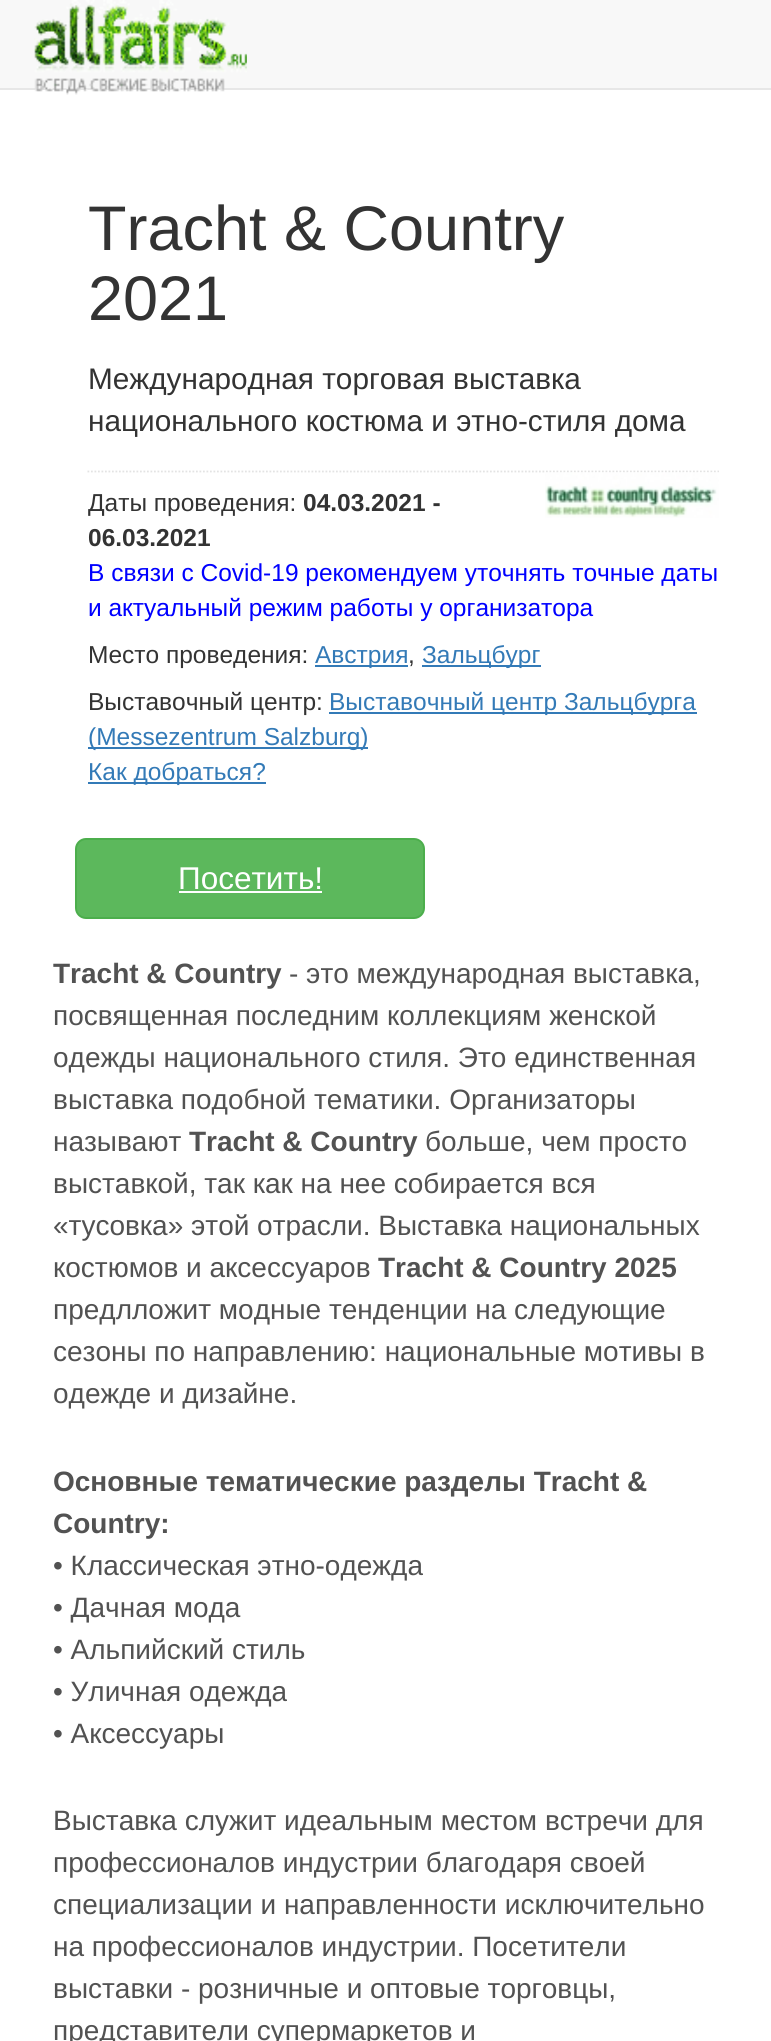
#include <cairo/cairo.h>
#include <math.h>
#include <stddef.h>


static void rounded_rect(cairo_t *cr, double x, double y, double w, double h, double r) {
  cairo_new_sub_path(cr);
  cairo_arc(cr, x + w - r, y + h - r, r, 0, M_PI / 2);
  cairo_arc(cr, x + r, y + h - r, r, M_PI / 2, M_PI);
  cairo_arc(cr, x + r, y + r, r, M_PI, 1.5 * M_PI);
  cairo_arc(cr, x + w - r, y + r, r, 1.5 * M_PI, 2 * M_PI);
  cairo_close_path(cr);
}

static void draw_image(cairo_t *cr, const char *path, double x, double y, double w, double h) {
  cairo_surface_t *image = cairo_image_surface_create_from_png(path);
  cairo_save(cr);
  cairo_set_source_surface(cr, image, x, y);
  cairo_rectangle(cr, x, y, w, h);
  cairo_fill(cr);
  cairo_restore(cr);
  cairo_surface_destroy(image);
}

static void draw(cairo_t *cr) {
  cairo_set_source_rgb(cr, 1, 1, 1);
  cairo_paint(cr);
  cairo_set_source_rgb(cr, 248 / 255.0, 248 / 255.0, 248 / 255.0);
  cairo_rectangle(cr, 0, 0, 771, 88);
  cairo_fill(cr);
  cairo_set_source_rgb(cr, 231 / 255.0, 231 / 255.0, 231 / 255.0);
  cairo_rectangle(cr, 0, 88, 771, 2);
  cairo_fill(cr);
  draw_image(cr, "images/1.png", 34, 0, 213, 95);
  cairo_new_path(cr);
  cairo_move_to(cr, 87.5, 471.5);
  cairo_line_to(cr, 719, 471.5);
  cairo_set_source_rgb(cr, 227 / 255.0, 227 / 255.0, 227 / 255.0);
  cairo_set_line_width(cr, 1.8);
  cairo_set_dash(cr, (double[]){1.75, 1.75}, 2, 0);
  cairo_stroke(cr);
  draw_image(cr, "images/2.png", 545, 472, 174, 46);
  cairo_set_source_rgb(cr, 51 / 255.0, 122 / 255.0, 183 / 255.0);
  cairo_rectangle(cr, 315, 665, 93, 2);
  cairo_fill(cr);
  cairo_rectangle(cr, 422, 665, 119, 2);
  cairo_fill(cr);
  cairo_rectangle(cr, 329, 712, 368, 2);
  cairo_fill(cr);
  cairo_rectangle(cr, 88, 747, 280, 2);
  cairo_fill(cr);
  cairo_rectangle(cr, 88, 782, 178, 2);
  cairo_fill(cr);
  cairo_set_source_rgb(cr, 92 / 255.0, 184 / 255.0, 92 / 255.0);
  rounded_rect(cr, 76, 839, 348, 79, 10);
  cairo_fill_preserve(cr);
  cairo_set_source_rgb(cr, 76 / 255.0, 174 / 255.0, 76 / 255.0);
  cairo_set_line_width(cr, 2);
  cairo_set_dash(cr, NULL, 0, 0);
  cairo_stroke(cr);
  cairo_set_source_rgb(cr, 1, 1, 1);
  cairo_rectangle(cr, 179, 891, 143, 2);
  cairo_fill(cr);
  cairo_select_font_face(cr, "Liberation Sans", CAIRO_FONT_SLANT_NORMAL, CAIRO_FONT_WEIGHT_NORMAL);
  cairo_set_font_size(cr, 63);
  cairo_set_source_rgb(cr, 51 / 255.0, 51 / 255.0, 51 / 255.0);
  cairo_move_to(cr, 88, 250);
  cairo_show_text(cr, "Tracht & Country");
  cairo_move_to(cr, 88, 320);
  cairo_show_text(cr, "2021");
  cairo_set_font_size(cr, 29.75);
  cairo_move_to(cr, 88, 389);
  cairo_show_text(cr, "Международная торговая выставка");
  cairo_move_to(cr, 88, 431);
  cairo_show_text(cr, "национального костюма и этно-стиля дома");
  cairo_set_font_size(cr, 24.5);
  cairo_move_to(cr, 88, 511);
  cairo_show_text(cr, "Даты проведения:");
  cairo_select_font_face(cr, "Liberation Sans", CAIRO_FONT_SLANT_NORMAL, CAIRO_FONT_WEIGHT_BOLD);
  cairo_move_to(cr, 303, 511);
  cairo_show_text(cr, "04.03.2021 -");
  cairo_move_to(cr, 88, 546);
  cairo_show_text(cr, "06.03.2021");
  cairo_select_font_face(cr, "Liberation Sans", CAIRO_FONT_SLANT_NORMAL, CAIRO_FONT_WEIGHT_NORMAL);
  cairo_set_source_rgb(cr, 0, 0, 1);
  cairo_move_to(cr, 88, 581);
  cairo_show_text(cr, "В связи с Covid-19 рекомендуем уточнять точные даты");
  cairo_move_to(cr, 88, 616);
  cairo_show_text(cr, "и актуальный режим работы у организатора");
  cairo_set_source_rgb(cr, 51 / 255.0, 51 / 255.0, 51 / 255.0);
  cairo_move_to(cr, 88, 663);
  cairo_show_text(cr, "Место проведения:");
  cairo_set_source_rgb(cr, 51 / 255.0, 122 / 255.0, 183 / 255.0);
  cairo_move_to(cr, 315, 663);
  cairo_show_text(cr, "Австрия");
  cairo_set_source_rgb(cr, 51 / 255.0, 51 / 255.0, 51 / 255.0);
  cairo_move_to(cr, 408, 663);
  cairo_show_text(cr, ",");
  cairo_set_source_rgb(cr, 51 / 255.0, 122 / 255.0, 183 / 255.0);
  cairo_move_to(cr, 422, 663);
  cairo_show_text(cr, "Зальцбург");
  cairo_set_source_rgb(cr, 51 / 255.0, 51 / 255.0, 51 / 255.0);
  cairo_move_to(cr, 88, 710);
  cairo_show_text(cr, "Выставочный центр:");
  cairo_set_source_rgb(cr, 51 / 255.0, 122 / 255.0, 183 / 255.0);
  cairo_move_to(cr, 329, 710);
  cairo_show_text(cr, "Выставочный центр Зальцбурга");
  cairo_move_to(cr, 88, 745);
  cairo_show_text(cr, "(Messezentrum Salzburg)");
  cairo_move_to(cr, 88, 780);
  cairo_show_text(cr, "Как добраться?");
  cairo_set_font_size(cr, 31.5);
  cairo_set_source_rgb(cr, 1, 1, 1);
  cairo_move_to(cr, 178, 889);
  cairo_show_text(cr, "Посетить!");
  cairo_select_font_face(cr, "Liberation Sans", CAIRO_FONT_SLANT_NORMAL, CAIRO_FONT_WEIGHT_BOLD);
  cairo_set_font_size(cr, 28);
  cairo_set_source_rgb(cr, 82 / 255.0, 82 / 255.0, 82 / 255.0);
  cairo_move_to(cr, 53, 983);
  cairo_show_text(cr, "Tracht & Country");
  cairo_select_font_face(cr, "Liberation Sans", CAIRO_FONT_SLANT_NORMAL, CAIRO_FONT_WEIGHT_NORMAL);
  cairo_move_to(cr, 289, 983);
  cairo_show_text(cr, "- это международная выставка,");
  cairo_move_to(cr, 53, 1025);
  cairo_show_text(cr, "посвященная последним коллекциям женской");
  cairo_move_to(cr, 53, 1067);
  cairo_show_text(cr, "одежды национального стиля. Это единственная");
  cairo_move_to(cr, 53, 1109);
  cairo_show_text(cr, "выставка подобной тематики. Организаторы");
  cairo_move_to(cr, 53, 1151);
  cairo_show_text(cr, "называют");
  cairo_select_font_face(cr, "Liberation Sans", CAIRO_FONT_SLANT_NORMAL, CAIRO_FONT_WEIGHT_BOLD);
  cairo_move_to(cr, 189, 1151);
  cairo_show_text(cr, "Tracht & Country");
  cairo_select_font_face(cr, "Liberation Sans", CAIRO_FONT_SLANT_NORMAL, CAIRO_FONT_WEIGHT_NORMAL);
  cairo_move_to(cr, 425, 1151);
  cairo_show_text(cr, "больше, чем просто");
  cairo_move_to(cr, 53, 1193);
  cairo_show_text(cr, "выставкой, так как на нее собирается вся");
  cairo_move_to(cr, 53, 1235);
  cairo_show_text(cr, "«тусовка» этой отрасли. Выставка национальных");
  cairo_move_to(cr, 53, 1277);
  cairo_show_text(cr, "костюмов и аксессуаров");
  cairo_select_font_face(cr, "Liberation Sans", CAIRO_FONT_SLANT_NORMAL, CAIRO_FONT_WEIGHT_BOLD);
  cairo_move_to(cr, 378, 1277);
  cairo_show_text(cr, "Tracht & Country 2025");
  cairo_select_font_face(cr, "Liberation Sans", CAIRO_FONT_SLANT_NORMAL, CAIRO_FONT_WEIGHT_NORMAL);
  cairo_move_to(cr, 53, 1319);
  cairo_show_text(cr, "предлложит модные тенденции на следующие");
  cairo_move_to(cr, 53, 1361);
  cairo_show_text(cr, "сезоны по направлению: национальные мотивы в");
  cairo_move_to(cr, 53, 1403);
  cairo_show_text(cr, "одежде и дизайне.");
  cairo_select_font_face(cr, "Liberation Sans", CAIRO_FONT_SLANT_NORMAL, CAIRO_FONT_WEIGHT_BOLD);
  cairo_move_to(cr, 53, 1491);
  cairo_show_text(cr, "Основные тематические разделы Tracht &");
  cairo_move_to(cr, 53, 1533);
  cairo_show_text(cr, "Country:");
  cairo_select_font_face(cr, "Liberation Sans", CAIRO_FONT_SLANT_NORMAL, CAIRO_FONT_WEIGHT_NORMAL);
  cairo_move_to(cr, 53, 1575);
  cairo_show_text(cr, "• Классическая этно-одежда");
  cairo_move_to(cr, 53, 1617);
  cairo_show_text(cr, "• Дачная мода");
  cairo_move_to(cr, 53, 1659);
  cairo_show_text(cr, "• Альпийский стиль");
  cairo_move_to(cr, 53, 1701);
  cairo_show_text(cr, "• Уличная одежда");
  cairo_move_to(cr, 53, 1743);
  cairo_show_text(cr, "• Аксессуары");
  cairo_move_to(cr, 53, 1830);
  cairo_show_text(cr, "Выставка служит идеальным местом встречи для");
  cairo_move_to(cr, 53, 1872);
  cairo_show_text(cr, "профессионалов индустрии благодаря своей");
  cairo_move_to(cr, 53, 1914);
  cairo_show_text(cr, "специализации и направленности исключительно");
  cairo_move_to(cr, 53, 1956);
  cairo_show_text(cr, "на профессионалов индустрии. Посетители");
  cairo_move_to(cr, 53, 1998);
  cairo_show_text(cr, "выставки - розничные и оптовые торговцы,");
  cairo_move_to(cr, 53, 2040);
  cairo_show_text(cr, "представители супермаркетов и");
}

int main(void) {
  cairo_surface_t *surface = cairo_image_surface_create(CAIRO_FORMAT_RGB24, 771, 2041);
  cairo_t *cr = cairo_create(surface);
  cairo_font_options_t *options = cairo_font_options_create();
  cairo_font_options_set_hint_metrics(options, CAIRO_HINT_METRICS_OFF);
  cairo_font_options_set_hint_style(options, CAIRO_HINT_STYLE_NONE);
  cairo_set_font_options(cr, options);
  cairo_set_miter_limit(cr, 4);
  draw(cr);
  cairo_surface_write_to_png(surface, "out.png");
  cairo_font_options_destroy(options);
  cairo_destroy(cr);
  cairo_surface_destroy(surface);
  return 0;
}
